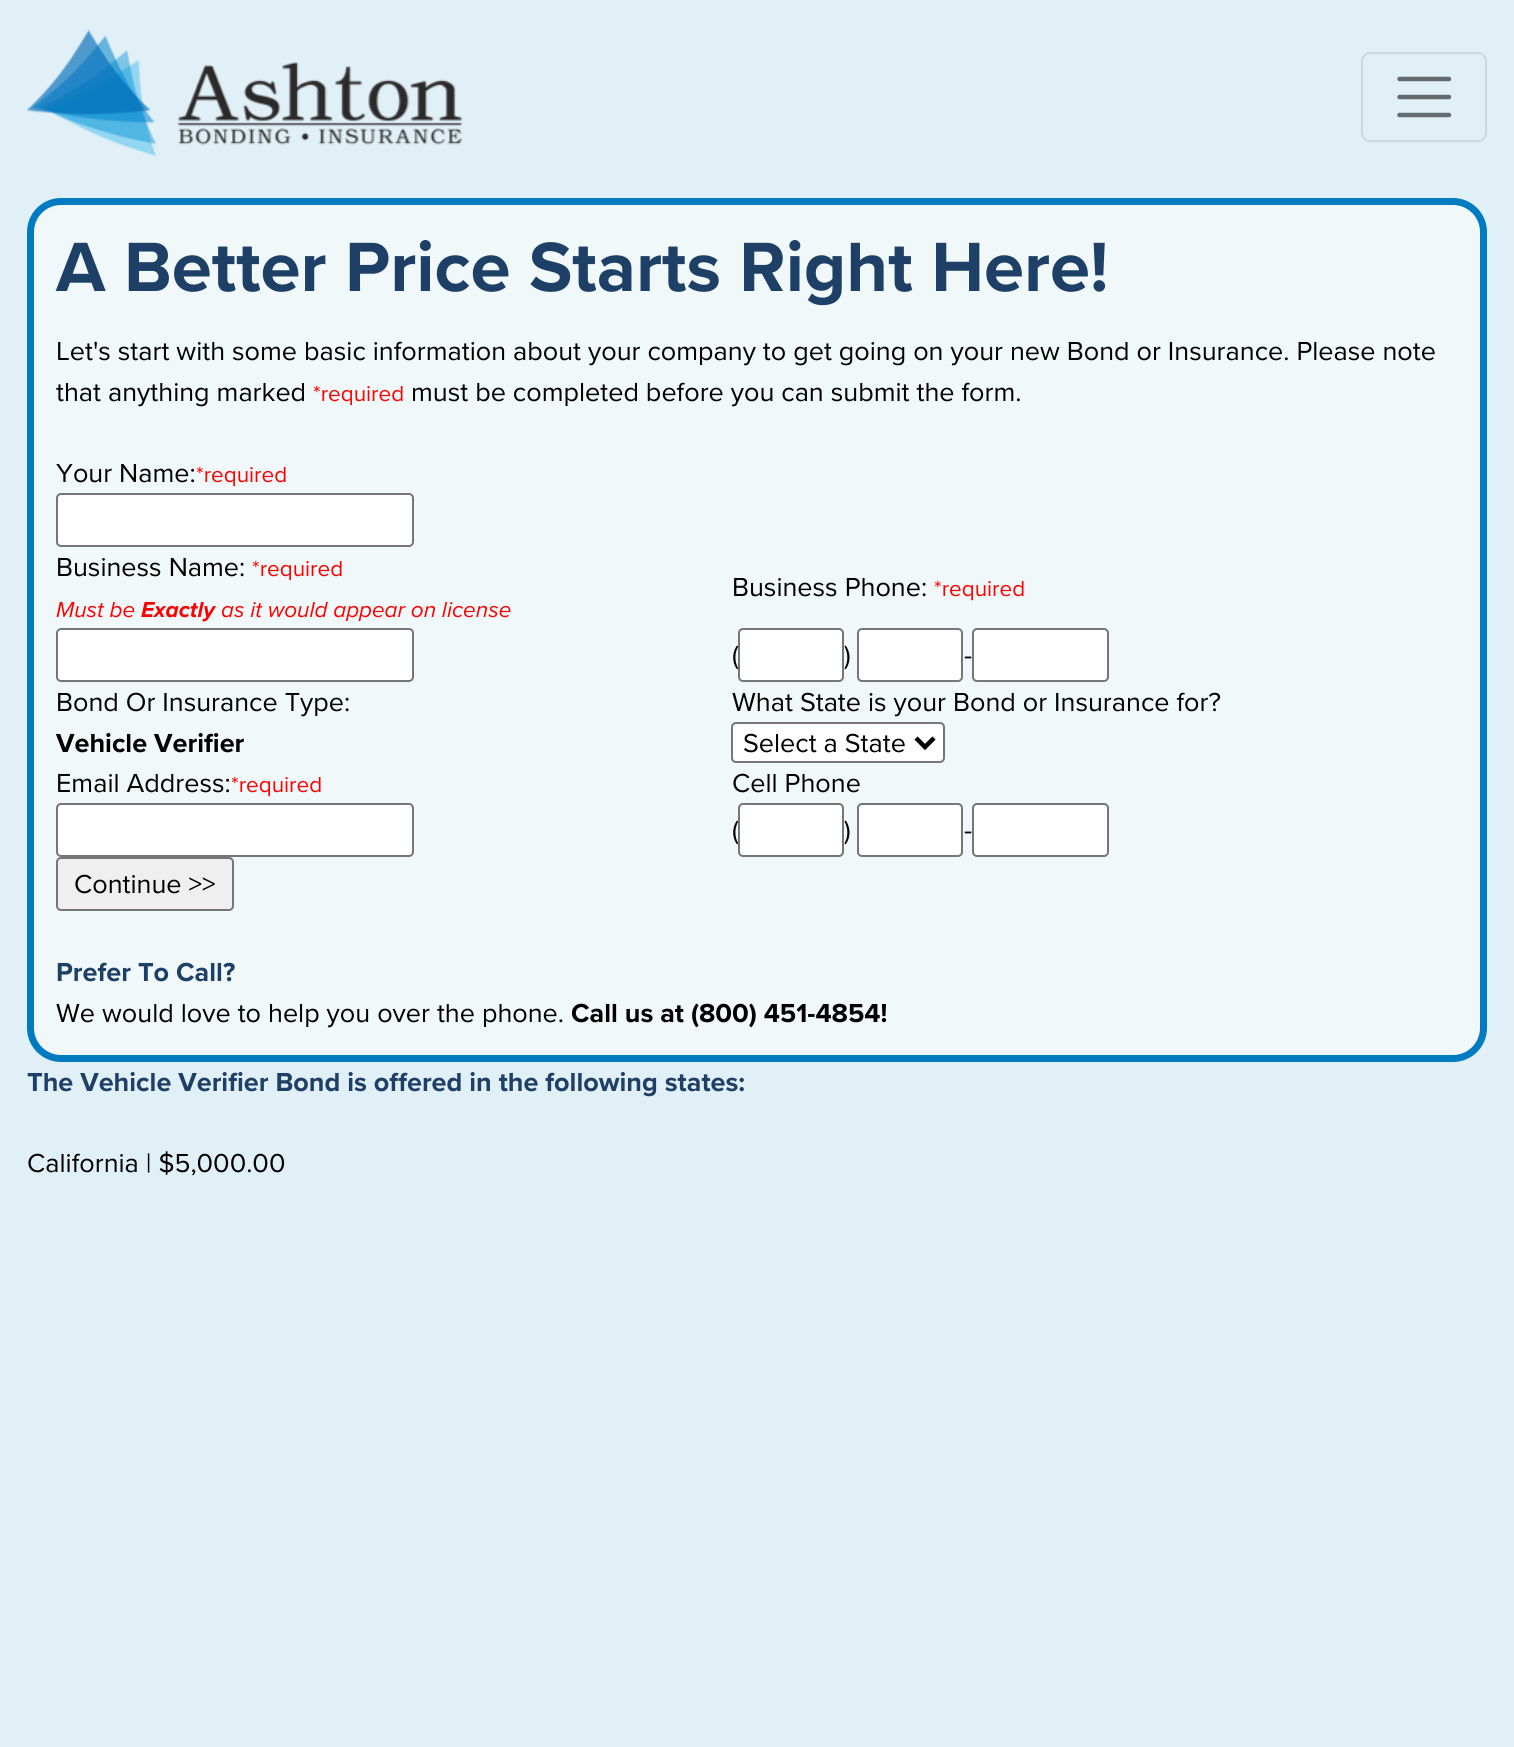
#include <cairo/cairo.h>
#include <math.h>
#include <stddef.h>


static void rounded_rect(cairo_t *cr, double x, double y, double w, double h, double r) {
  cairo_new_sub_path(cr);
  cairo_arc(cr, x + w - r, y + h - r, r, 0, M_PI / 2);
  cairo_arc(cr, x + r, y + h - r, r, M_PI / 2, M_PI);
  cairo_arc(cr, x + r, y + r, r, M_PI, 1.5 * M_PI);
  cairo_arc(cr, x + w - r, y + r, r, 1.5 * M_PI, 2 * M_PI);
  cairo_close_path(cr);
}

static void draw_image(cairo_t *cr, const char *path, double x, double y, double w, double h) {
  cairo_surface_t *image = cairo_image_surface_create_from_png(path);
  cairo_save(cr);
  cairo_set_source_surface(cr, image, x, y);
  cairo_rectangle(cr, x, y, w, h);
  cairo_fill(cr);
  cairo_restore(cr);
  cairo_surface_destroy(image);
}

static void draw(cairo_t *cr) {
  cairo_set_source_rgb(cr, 225 / 255.0, 240 / 255.0, 247 / 255.0);
  cairo_paint(cr);
  draw_image(cr, "images/1.png", 27, 29, 436, 128);
  rounded_rect(cr, 1362, 53, 124, 88, 8);
  cairo_set_source_rgb(cr, 203 / 255.0, 216 / 255.0, 222 / 255.0);
  cairo_stroke(cr);
  cairo_new_path(cr);
  cairo_move_to(cr, 1399.5, 79);
  cairo_line_to(cr, 1449, 79);
  cairo_move_to(cr, 1399.5, 97);
  cairo_line_to(cr, 1449, 97);
  cairo_move_to(cr, 1399.5, 115);
  cairo_line_to(cr, 1449, 115);
  cairo_set_source_rgb(cr, 101 / 255.0, 108 / 255.0, 111 / 255.0);
  cairo_set_line_width(cr, 4.5);
  cairo_set_line_cap(cr, CAIRO_LINE_CAP_ROUND);
  cairo_stroke(cr);
  cairo_set_source_rgb(cr, 240 / 255.0, 248 / 255.0, 250 / 255.0);
  rounded_rect(cr, 30.5, 201.5, 1453, 857, 30.5);
  cairo_fill_preserve(cr);
  cairo_set_source_rgb(cr, 0, 122 / 255.0, 193 / 255.0);
  cairo_set_line_width(cr, 7);
  cairo_set_line_cap(cr, CAIRO_LINE_CAP_BUTT);
  cairo_stroke(cr);
  cairo_set_source_rgb(cr, 1, 1, 1);
  rounded_rect(cr, 57, 494, 356, 52, 4);
  cairo_fill_preserve(cr);
  cairo_set_source_rgb(cr, 118 / 255.0, 118 / 255.0, 118 / 255.0);
  cairo_set_line_width(cr, 2);
  cairo_stroke(cr);
  cairo_set_source_rgb(cr, 1, 1, 1);
  rounded_rect(cr, 57, 629, 356, 52, 4);
  cairo_fill_preserve(cr);
  cairo_set_source_rgb(cr, 118 / 255.0, 118 / 255.0, 118 / 255.0);
  cairo_stroke(cr);
  cairo_set_source_rgb(cr, 1, 1, 1);
  rounded_rect(cr, 739, 629, 104, 52, 4);
  cairo_fill_preserve(cr);
  cairo_set_source_rgb(cr, 118 / 255.0, 118 / 255.0, 118 / 255.0);
  cairo_stroke(cr);
  cairo_set_source_rgb(cr, 1, 1, 1);
  rounded_rect(cr, 858, 629, 104, 52, 4);
  cairo_fill_preserve(cr);
  cairo_set_source_rgb(cr, 118 / 255.0, 118 / 255.0, 118 / 255.0);
  cairo_stroke(cr);
  cairo_set_source_rgb(cr, 1, 1, 1);
  rounded_rect(cr, 973, 629, 135, 52, 4);
  cairo_fill_preserve(cr);
  cairo_set_source_rgb(cr, 118 / 255.0, 118 / 255.0, 118 / 255.0);
  cairo_stroke(cr);
  cairo_set_source_rgb(cr, 1, 1, 1);
  rounded_rect(cr, 732, 723, 212, 39, 4);
  cairo_fill_preserve(cr);
  cairo_set_source_rgb(cr, 118 / 255.0, 118 / 255.0, 118 / 255.0);
  cairo_stroke(cr);
  cairo_new_path(cr);
  cairo_move_to(cr, 916, 738);
  cairo_line_to(cr, 925, 747);
  cairo_line_to(cr, 934, 738);
  cairo_set_source_rgb(cr, 0, 0, 0);
  cairo_set_line_width(cr, 4.5);
  cairo_stroke(cr);
  cairo_set_source_rgb(cr, 1, 1, 1);
  rounded_rect(cr, 57, 804, 356, 52, 4);
  cairo_fill_preserve(cr);
  cairo_set_source_rgb(cr, 118 / 255.0, 118 / 255.0, 118 / 255.0);
  cairo_set_line_width(cr, 2);
  cairo_stroke(cr);
  cairo_set_source_rgb(cr, 1, 1, 1);
  rounded_rect(cr, 739, 804, 104, 52, 4);
  cairo_fill_preserve(cr);
  cairo_set_source_rgb(cr, 118 / 255.0, 118 / 255.0, 118 / 255.0);
  cairo_stroke(cr);
  cairo_set_source_rgb(cr, 1, 1, 1);
  rounded_rect(cr, 858, 804, 104, 52, 4);
  cairo_fill_preserve(cr);
  cairo_set_source_rgb(cr, 118 / 255.0, 118 / 255.0, 118 / 255.0);
  cairo_stroke(cr);
  cairo_set_source_rgb(cr, 1, 1, 1);
  rounded_rect(cr, 973, 804, 135, 52, 4);
  cairo_fill_preserve(cr);
  cairo_set_source_rgb(cr, 118 / 255.0, 118 / 255.0, 118 / 255.0);
  cairo_stroke(cr);
  cairo_set_source_rgb(cr, 239 / 255.0, 239 / 255.0, 239 / 255.0);
  rounded_rect(cr, 57, 858, 176, 52, 4);
  cairo_fill_preserve(cr);
  cairo_set_source_rgb(cr, 118 / 255.0, 118 / 255.0, 118 / 255.0);
  cairo_stroke(cr);
  cairo_select_font_face(cr, "Proxima Nova", CAIRO_FONT_SLANT_NORMAL, CAIRO_FONT_WEIGHT_BOLD);
  cairo_set_font_size(cr, 72.25);
  cairo_set_source_rgb(cr, 30 / 255.0, 63 / 255.0, 102 / 255.0);
  cairo_move_to(cr, 56, 291);
  cairo_show_text(cr, "A Better Price Starts Right Here!");
  cairo_select_font_face(cr, "Proxima Nova", CAIRO_FONT_SLANT_NORMAL, CAIRO_FONT_WEIGHT_NORMAL);
  cairo_set_font_size(cr, 27);
  cairo_set_source_rgb(cr, 0, 0, 0);
  cairo_move_to(cr, 56, 360);
  cairo_show_text(cr, "Let's start with some basic information about your company to get going on your new Bond or Insurance. Please note");
  cairo_move_to(cr, 56, 401);
  cairo_show_text(cr, "that anything marked");
  cairo_set_font_size(cr, 22.5);
  cairo_set_source_rgb(cr, 1, 0, 0);
  cairo_move_to(cr, 313, 401);
  cairo_show_text(cr, "*required");
  cairo_set_font_size(cr, 27);
  cairo_set_source_rgb(cr, 0, 0, 0);
  cairo_move_to(cr, 411, 401);
  cairo_show_text(cr, "must be completed before you can submit the form.");
  cairo_move_to(cr, 56, 482);
  cairo_show_text(cr, "Your Name:");
  cairo_set_font_size(cr, 22.5);
  cairo_set_source_rgb(cr, 1, 0, 0);
  cairo_move_to(cr, 196, 482);
  cairo_show_text(cr, "*required");
  cairo_set_font_size(cr, 27);
  cairo_set_source_rgb(cr, 0, 0, 0);
  cairo_move_to(cr, 56, 576);
  cairo_show_text(cr, "Business Name:");
  cairo_set_font_size(cr, 22.5);
  cairo_set_source_rgb(cr, 1, 0, 0);
  cairo_move_to(cr, 252, 576);
  cairo_show_text(cr, "*required");
  cairo_select_font_face(cr, "Proxima Nova", CAIRO_FONT_SLANT_ITALIC, CAIRO_FONT_WEIGHT_NORMAL);
  cairo_move_to(cr, 56, 617);
  cairo_show_text(cr, "Must be");
  cairo_select_font_face(cr, "Proxima Nova", CAIRO_FONT_SLANT_ITALIC, CAIRO_FONT_WEIGHT_BOLD);
  cairo_move_to(cr, 141, 617);
  cairo_show_text(cr, "Exactly");
  cairo_select_font_face(cr, "Proxima Nova", CAIRO_FONT_SLANT_ITALIC, CAIRO_FONT_WEIGHT_NORMAL);
  cairo_move_to(cr, 221, 617);
  cairo_show_text(cr, "as it would appear on license");
  cairo_select_font_face(cr, "Proxima Nova", CAIRO_FONT_SLANT_NORMAL, CAIRO_FONT_WEIGHT_NORMAL);
  cairo_set_font_size(cr, 27);
  cairo_set_source_rgb(cr, 0, 0, 0);
  cairo_move_to(cr, 732, 596);
  cairo_show_text(cr, "Business Phone:");
  cairo_set_font_size(cr, 22.5);
  cairo_set_source_rgb(cr, 1, 0, 0);
  cairo_move_to(cr, 934, 596);
  cairo_show_text(cr, "*required");
  cairo_set_font_size(cr, 27);
  cairo_set_source_rgb(cr, 0, 0, 0);
  cairo_move_to(cr, 732, 664);
  cairo_show_text(cr, "(");
  cairo_move_to(cr, 844, 664);
  cairo_show_text(cr, ")");
  cairo_move_to(cr, 964, 664);
  cairo_show_text(cr, "-");
  cairo_move_to(cr, 56, 711);
  cairo_show_text(cr, "Bond Or Insurance Type:");
  cairo_move_to(cr, 732, 711);
  cairo_show_text(cr, "What State is your Bond or Insurance for?");
  cairo_select_font_face(cr, "Proxima Nova", CAIRO_FONT_SLANT_NORMAL, CAIRO_FONT_WEIGHT_BOLD);
  cairo_move_to(cr, 56, 752);
  cairo_show_text(cr, "Vehicle Verifier");
  cairo_select_font_face(cr, "Proxima Nova", CAIRO_FONT_SLANT_NORMAL, CAIRO_FONT_WEIGHT_NORMAL);
  cairo_move_to(cr, 743, 752);
  cairo_show_text(cr, "Select a State");
  cairo_move_to(cr, 56, 792);
  cairo_show_text(cr, "Email Address:");
  cairo_set_font_size(cr, 22.5);
  cairo_set_source_rgb(cr, 1, 0, 0);
  cairo_move_to(cr, 231, 792);
  cairo_show_text(cr, "*required");
  cairo_set_font_size(cr, 27);
  cairo_set_source_rgb(cr, 0, 0, 0);
  cairo_move_to(cr, 732, 792);
  cairo_show_text(cr, "Cell Phone");
  cairo_move_to(cr, 732, 839);
  cairo_show_text(cr, "(");
  cairo_move_to(cr, 844, 839);
  cairo_show_text(cr, ")");
  cairo_move_to(cr, 964, 839);
  cairo_show_text(cr, "-");
  cairo_move_to(cr, 74, 893);
  cairo_show_text(cr, "Continue >>");
  cairo_select_font_face(cr, "Proxima Nova", CAIRO_FONT_SLANT_NORMAL, CAIRO_FONT_WEIGHT_BOLD);
  cairo_set_source_rgb(cr, 30 / 255.0, 63 / 255.0, 102 / 255.0);
  cairo_move_to(cr, 56, 981);
  cairo_show_text(cr, "Prefer To Call?");
  cairo_select_font_face(cr, "Proxima Nova", CAIRO_FONT_SLANT_NORMAL, CAIRO_FONT_WEIGHT_NORMAL);
  cairo_set_source_rgb(cr, 0, 0, 0);
  cairo_move_to(cr, 56, 1022);
  cairo_show_text(cr, "We would love to help you over the phone.");
  cairo_select_font_face(cr, "Proxima Nova", CAIRO_FONT_SLANT_NORMAL, CAIRO_FONT_WEIGHT_BOLD);
  cairo_move_to(cr, 571, 1022);
  cairo_show_text(cr, "Call us at (800) 451-4854!");
  cairo_set_source_rgb(cr, 30 / 255.0, 63 / 255.0, 102 / 255.0);
  cairo_move_to(cr, 27, 1091);
  cairo_show_text(cr, "The Vehicle Verifier Bond is offered in the following states:");
  cairo_select_font_face(cr, "Proxima Nova", CAIRO_FONT_SLANT_NORMAL, CAIRO_FONT_WEIGHT_NORMAL);
  cairo_set_source_rgb(cr, 0, 0, 0);
  cairo_move_to(cr, 27, 1172);
  cairo_show_text(cr, "California | $5,000.00");
}

int main(void) {
  cairo_surface_t *surface = cairo_image_surface_create(CAIRO_FORMAT_RGB24, 1514, 1747);
  cairo_t *cr = cairo_create(surface);
  cairo_font_options_t *options = cairo_font_options_create();
  cairo_font_options_set_hint_metrics(options, CAIRO_HINT_METRICS_OFF);
  cairo_font_options_set_hint_style(options, CAIRO_HINT_STYLE_NONE);
  cairo_set_font_options(cr, options);
  cairo_set_miter_limit(cr, 4);
  draw(cr);
  cairo_surface_write_to_png(surface, "out.png");
  cairo_font_options_destroy(options);
  cairo_destroy(cr);
  cairo_surface_destroy(surface);
  return 0;
}
